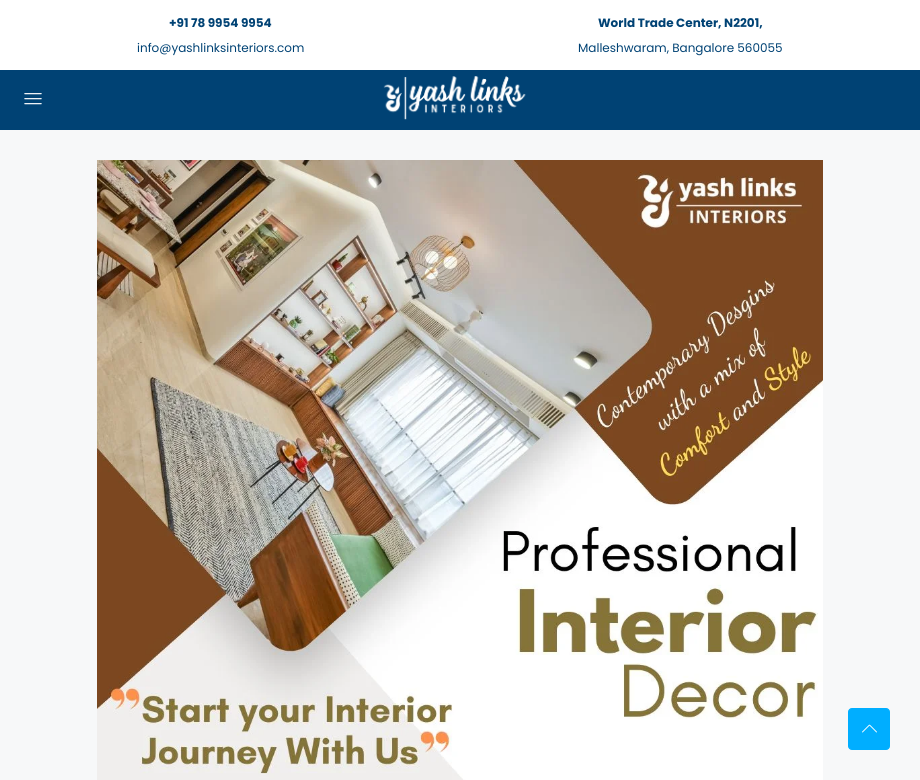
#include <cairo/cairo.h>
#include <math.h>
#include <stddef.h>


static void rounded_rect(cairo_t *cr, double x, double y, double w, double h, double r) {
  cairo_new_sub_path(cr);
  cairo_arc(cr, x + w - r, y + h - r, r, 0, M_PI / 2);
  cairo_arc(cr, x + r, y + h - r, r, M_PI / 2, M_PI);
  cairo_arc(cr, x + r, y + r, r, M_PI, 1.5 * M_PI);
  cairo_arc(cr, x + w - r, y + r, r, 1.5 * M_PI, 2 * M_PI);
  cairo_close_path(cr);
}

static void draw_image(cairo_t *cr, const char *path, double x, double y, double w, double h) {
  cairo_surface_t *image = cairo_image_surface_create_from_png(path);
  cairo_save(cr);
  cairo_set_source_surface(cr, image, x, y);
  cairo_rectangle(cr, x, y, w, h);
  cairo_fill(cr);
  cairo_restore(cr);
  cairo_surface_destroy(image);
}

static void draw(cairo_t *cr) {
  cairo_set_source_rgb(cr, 247 / 255.0, 248 / 255.0, 249 / 255.0);
  cairo_paint(cr);
  cairo_set_source_rgb(cr, 1, 1, 1);
  cairo_rectangle(cr, 0, 0, 920, 70);
  cairo_fill(cr);
  cairo_set_source_rgb(cr, 0, 66 / 255.0, 116 / 255.0);
  cairo_rectangle(cr, 0, 70, 920, 60);
  cairo_fill(cr);
  draw_image(cr, "images/1.png", 24, 93, 18, 12);
  draw_image(cr, "images/2.png", 383, 76, 143, 44);
  draw_image(cr, "images/3.png", 97, 160, 726, 620);
  cairo_set_source_rgb(cr, 0, 174 / 255.0, 1);
  rounded_rect(cr, 848.5, 708.5, 41, 41, 3.5);
  cairo_fill_preserve(cr);
  cairo_set_line_width(cr, 1);
  cairo_stroke(cr);
  draw_image(cr, "images/4.png", 862, 724, 15, 9);
  cairo_select_font_face(cr, "Poppins", CAIRO_FONT_SLANT_NORMAL, CAIRO_FONT_WEIGHT_BOLD);
  cairo_set_font_size(cr, 12);
  cairo_set_source_rgb(cr, 0, 66 / 255.0, 116 / 255.0);
  cairo_move_to(cr, 169, 27);
  cairo_show_text(cr, "+91 78 9954 9954");
  cairo_select_font_face(cr, "Poppins", CAIRO_FONT_SLANT_NORMAL, CAIRO_FONT_WEIGHT_NORMAL);
  cairo_move_to(cr, 137, 52);
  cairo_show_text(cr, "info@yashlinksinteriors.com");
  cairo_select_font_face(cr, "Poppins", CAIRO_FONT_SLANT_NORMAL, CAIRO_FONT_WEIGHT_BOLD);
  cairo_move_to(cr, 598, 27);
  cairo_show_text(cr, "World Trade Center, N2201,");
  cairo_select_font_face(cr, "Poppins", CAIRO_FONT_SLANT_NORMAL, CAIRO_FONT_WEIGHT_NORMAL);
  cairo_move_to(cr, 578, 52);
  cairo_show_text(cr, "Malleshwaram, Bangalore 560055");
}

int main(void) {
  cairo_surface_t *surface = cairo_image_surface_create(CAIRO_FORMAT_RGB24, 920, 780);
  cairo_t *cr = cairo_create(surface);
  cairo_font_options_t *options = cairo_font_options_create();
  cairo_font_options_set_hint_metrics(options, CAIRO_HINT_METRICS_OFF);
  cairo_font_options_set_hint_style(options, CAIRO_HINT_STYLE_NONE);
  cairo_set_font_options(cr, options);
  cairo_set_miter_limit(cr, 4);
  draw(cr);
  cairo_surface_write_to_png(surface, "out.png");
  cairo_font_options_destroy(options);
  cairo_destroy(cr);
  cairo_surface_destroy(surface);
  return 0;
}
